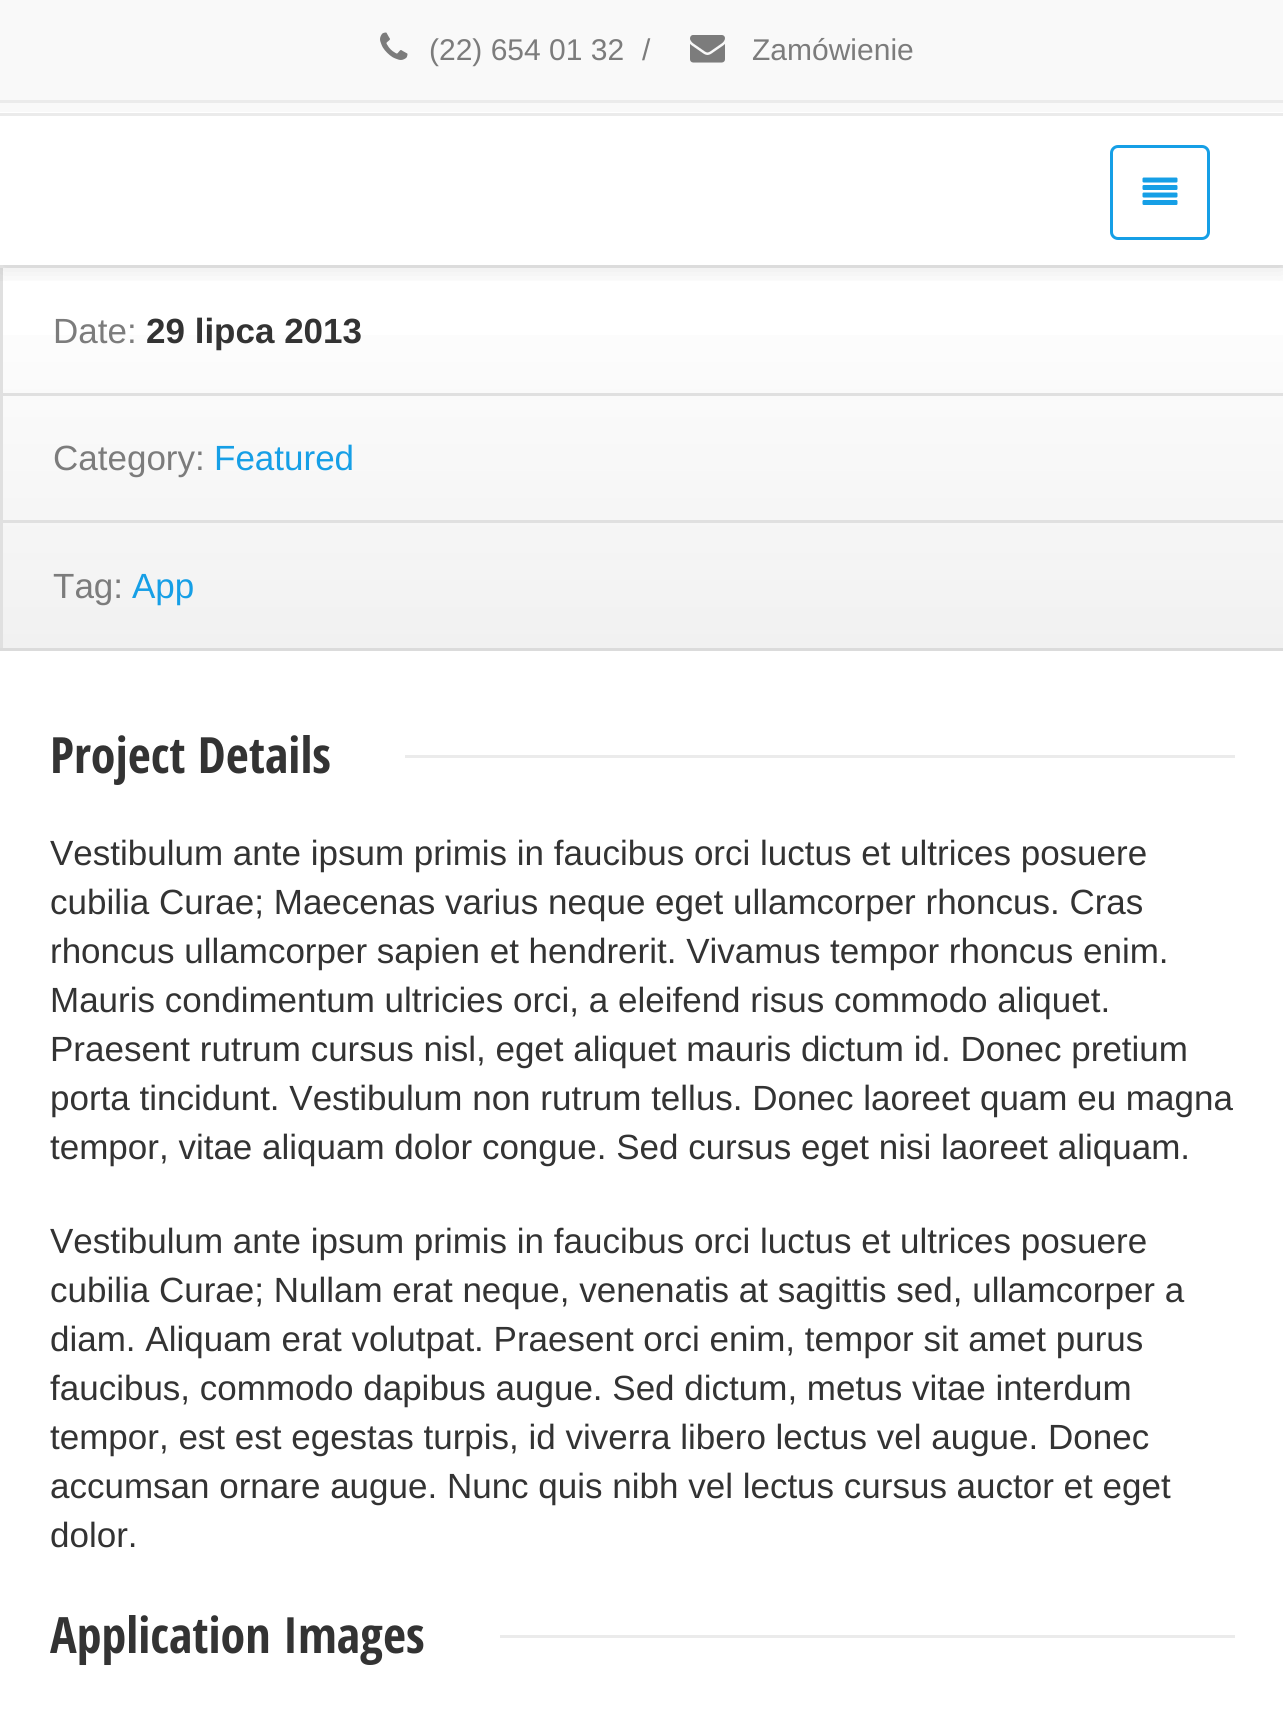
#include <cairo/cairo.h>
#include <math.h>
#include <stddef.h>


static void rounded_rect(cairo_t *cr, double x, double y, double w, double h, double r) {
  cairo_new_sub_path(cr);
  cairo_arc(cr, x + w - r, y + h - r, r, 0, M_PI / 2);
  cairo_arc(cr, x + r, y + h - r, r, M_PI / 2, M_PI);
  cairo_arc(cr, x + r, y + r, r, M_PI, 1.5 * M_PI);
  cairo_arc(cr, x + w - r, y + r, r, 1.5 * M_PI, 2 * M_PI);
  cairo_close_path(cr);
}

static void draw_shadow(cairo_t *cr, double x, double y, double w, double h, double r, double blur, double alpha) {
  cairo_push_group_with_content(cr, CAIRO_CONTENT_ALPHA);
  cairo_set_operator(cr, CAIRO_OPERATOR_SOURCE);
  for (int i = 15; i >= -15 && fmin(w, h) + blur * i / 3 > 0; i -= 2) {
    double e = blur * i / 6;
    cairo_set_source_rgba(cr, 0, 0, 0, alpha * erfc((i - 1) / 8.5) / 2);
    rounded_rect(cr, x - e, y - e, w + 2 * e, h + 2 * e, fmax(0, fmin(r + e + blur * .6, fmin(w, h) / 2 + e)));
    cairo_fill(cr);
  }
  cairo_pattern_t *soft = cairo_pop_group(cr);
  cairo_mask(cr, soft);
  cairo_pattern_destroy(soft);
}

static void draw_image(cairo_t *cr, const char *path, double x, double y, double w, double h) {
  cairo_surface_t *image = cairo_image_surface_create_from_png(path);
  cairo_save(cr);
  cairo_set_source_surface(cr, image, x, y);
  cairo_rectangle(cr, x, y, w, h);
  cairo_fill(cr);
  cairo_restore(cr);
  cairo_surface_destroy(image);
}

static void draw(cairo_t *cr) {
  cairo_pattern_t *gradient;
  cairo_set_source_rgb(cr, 1, 1, 1);
  cairo_paint(cr);
  cairo_set_source_rgb(cr, 235 / 255.0, 235 / 255.0, 235 / 255.0);
  cairo_rectangle(cr, 0, 265, 1283, 3);
  cairo_fill(cr);
  cairo_set_source_rgb(cr, 224 / 255.0, 224 / 255.0, 224 / 255.0);
  cairo_rectangle(cr, 0, 268, 3, 380);
  cairo_fill(cr);
  cairo_save(cr);
  cairo_rectangle(cr, 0, 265, 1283, 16);
  cairo_clip(cr);
  cairo_set_source_rgb(cr, 0, 0, 0);
  draw_shadow(cr, 0, 120, 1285, 150, 0, 12.5, 0.1);
  cairo_restore(cr);
  cairo_set_source_rgb(cr, 249 / 255.0, 249 / 255.0, 249 / 255.0);
  cairo_rectangle(cr, 0, 0, 1283, 112);
  cairo_fill(cr);
  cairo_set_source_rgb(cr, 235 / 255.0, 235 / 255.0, 235 / 255.0);
  cairo_rectangle(cr, 0, 113, 1283, 3);
  cairo_fill(cr);
  cairo_rectangle(cr, 0, 100, 1283, 3);
  cairo_fill(cr);
  draw_image(cr, "images/1.png", 380, 32, 28, 28);
  draw_image(cr, "images/2.png", 690, 35, 35, 28);
  rounded_rect(cr, 1111.5, 146.5, 97, 92, 6.5);
  cairo_set_source_rgb(cr, 22 / 255.0, 159 / 255.0, 230 / 255.0);
  cairo_set_line_width(cr, 3);
  cairo_stroke(cr);
  draw_image(cr, "images/3.png", 1142, 177, 36, 28);
  gradient = cairo_pattern_create_linear(643, 267, 643, 648);
  cairo_pattern_add_color_stop_rgba(gradient, 0, 1, 1, 1, 1);
  cairo_pattern_add_color_stop_rgba(gradient, 1, 241 / 255.0, 241 / 255.0, 241 / 255.0, 1);
  cairo_set_source(cr, gradient);
  cairo_pattern_destroy(gradient);
  cairo_rectangle(cr, 3, 335, 1280, 313);
  cairo_fill(cr);
  cairo_set_source_rgb(cr, 219 / 255.0, 219 / 255.0, 219 / 255.0);
  cairo_rectangle(cr, 0, 648, 1283, 3);
  cairo_fill(cr);
  cairo_set_source_rgb(cr, 224 / 255.0, 224 / 255.0, 224 / 255.0);
  cairo_rectangle(cr, 3, 393, 1280, 3);
  cairo_fill(cr);
  cairo_rectangle(cr, 3, 520, 1280, 3);
  cairo_fill(cr);
  cairo_set_source_rgb(cr, 235 / 255.0, 235 / 255.0, 235 / 255.0);
  cairo_rectangle(cr, 405, 755, 830, 3);
  cairo_fill(cr);
  cairo_rectangle(cr, 500, 1635, 735, 3);
  cairo_fill(cr);
  cairo_select_font_face(cr, "Liberation Sans", CAIRO_FONT_SLANT_NORMAL, CAIRO_FONT_WEIGHT_NORMAL);
  cairo_set_font_size(cr, 30);
  cairo_set_source_rgb(cr, 124 / 255.0, 124 / 255.0, 124 / 255.0);
  cairo_move_to(cr, 429, 60);
  cairo_show_text(cr, "(22) 654 01 32");
  cairo_move_to(cr, 642, 60);
  cairo_show_text(cr, "/");
  cairo_move_to(cr, 752, 60);
  cairo_show_text(cr, "Zamówienie");
  cairo_set_font_size(cr, 35);
  cairo_move_to(cr, 53, 343);
  cairo_show_text(cr, "Date:");
  cairo_select_font_face(cr, "Liberation Sans", CAIRO_FONT_SLANT_NORMAL, CAIRO_FONT_WEIGHT_BOLD);
  cairo_set_source_rgb(cr, 51 / 255.0, 51 / 255.0, 51 / 255.0);
  cairo_move_to(cr, 146, 343);
  cairo_show_text(cr, "29 lipca 2013");
  cairo_select_font_face(cr, "Liberation Sans", CAIRO_FONT_SLANT_NORMAL, CAIRO_FONT_WEIGHT_NORMAL);
  cairo_set_source_rgb(cr, 124 / 255.0, 124 / 255.0, 124 / 255.0);
  cairo_move_to(cr, 53, 470);
  cairo_show_text(cr, "Category:");
  cairo_set_source_rgb(cr, 22 / 255.0, 159 / 255.0, 230 / 255.0);
  cairo_move_to(cr, 214, 470);
  cairo_show_text(cr, "Featured");
  cairo_set_source_rgb(cr, 124 / 255.0, 124 / 255.0, 124 / 255.0);
  cairo_move_to(cr, 53, 598);
  cairo_show_text(cr, "Tag:");
  cairo_set_source_rgb(cr, 22 / 255.0, 159 / 255.0, 230 / 255.0);
  cairo_move_to(cr, 132, 598);
  cairo_show_text(cr, "App");
  cairo_select_font_face(cr, "Open Sans Condensed", CAIRO_FONT_SLANT_NORMAL, CAIRO_FONT_WEIGHT_BOLD);
  cairo_set_font_size(cr, 50);
  cairo_set_source_rgb(cr, 51 / 255.0, 51 / 255.0, 51 / 255.0);
  cairo_move_to(cr, 50, 773);
  cairo_show_text(cr, "Project Details");
  cairo_select_font_face(cr, "Liberation Sans", CAIRO_FONT_SLANT_NORMAL, CAIRO_FONT_WEIGHT_NORMAL);
  cairo_set_font_size(cr, 35);
  cairo_move_to(cr, 50, 865);
  cairo_show_text(cr, "Vestibulum ante ipsum primis in faucibus orci luctus et ultrices posuere");
  cairo_move_to(cr, 50, 914);
  cairo_show_text(cr, "cubilia Curae; Maecenas varius neque eget ullamcorper rhoncus. Cras");
  cairo_move_to(cr, 50, 963);
  cairo_show_text(cr, "rhoncus ullamcorper sapien et hendrerit. Vivamus tempor rhoncus enim.");
  cairo_move_to(cr, 50, 1012);
  cairo_show_text(cr, "Mauris condimentum ultricies orci, a eleifend risus commodo aliquet.");
  cairo_move_to(cr, 50, 1061);
  cairo_show_text(cr, "Praesent rutrum cursus nisl, eget aliquet mauris dictum id. Donec pretium");
  cairo_move_to(cr, 50, 1110);
  cairo_show_text(cr, "porta tincidunt. Vestibulum non rutrum tellus. Donec laoreet quam eu magna");
  cairo_move_to(cr, 50, 1159);
  cairo_show_text(cr, "tempor, vitae aliquam dolor congue. Sed cursus eget nisi laoreet aliquam.");
  cairo_move_to(cr, 50, 1253);
  cairo_show_text(cr, "Vestibulum ante ipsum primis in faucibus orci luctus et ultrices posuere");
  cairo_move_to(cr, 50, 1302);
  cairo_show_text(cr, "cubilia Curae; Nullam erat neque, venenatis at sagittis sed, ullamcorper a");
  cairo_move_to(cr, 50, 1351);
  cairo_show_text(cr, "diam. Aliquam erat volutpat. Praesent orci enim, tempor sit amet purus");
  cairo_move_to(cr, 50, 1400);
  cairo_show_text(cr, "faucibus, commodo dapibus augue. Sed dictum, metus vitae interdum");
  cairo_move_to(cr, 50, 1449);
  cairo_show_text(cr, "tempor, est est egestas turpis, id viverra libero lectus vel augue. Donec");
  cairo_move_to(cr, 50, 1498);
  cairo_show_text(cr, "accumsan ornare augue. Nunc quis nibh vel lectus cursus auctor et eget");
  cairo_move_to(cr, 50, 1547);
  cairo_show_text(cr, "dolor.");
  cairo_select_font_face(cr, "Open Sans Condensed", CAIRO_FONT_SLANT_NORMAL, CAIRO_FONT_WEIGHT_BOLD);
  cairo_set_font_size(cr, 50);
  cairo_move_to(cr, 50, 1653);
  cairo_show_text(cr, "Application Images");
}

int main(void) {
  cairo_surface_t *surface = cairo_image_surface_create(CAIRO_FORMAT_RGB24, 1283, 1714);
  cairo_t *cr = cairo_create(surface);
  cairo_font_options_t *options = cairo_font_options_create();
  cairo_font_options_set_hint_metrics(options, CAIRO_HINT_METRICS_OFF);
  cairo_font_options_set_hint_style(options, CAIRO_HINT_STYLE_NONE);
  cairo_set_font_options(cr, options);
  cairo_set_miter_limit(cr, 4);
  draw(cr);
  cairo_surface_write_to_png(surface, "out.png");
  cairo_font_options_destroy(options);
  cairo_destroy(cr);
  cairo_surface_destroy(surface);
  return 0;
}
